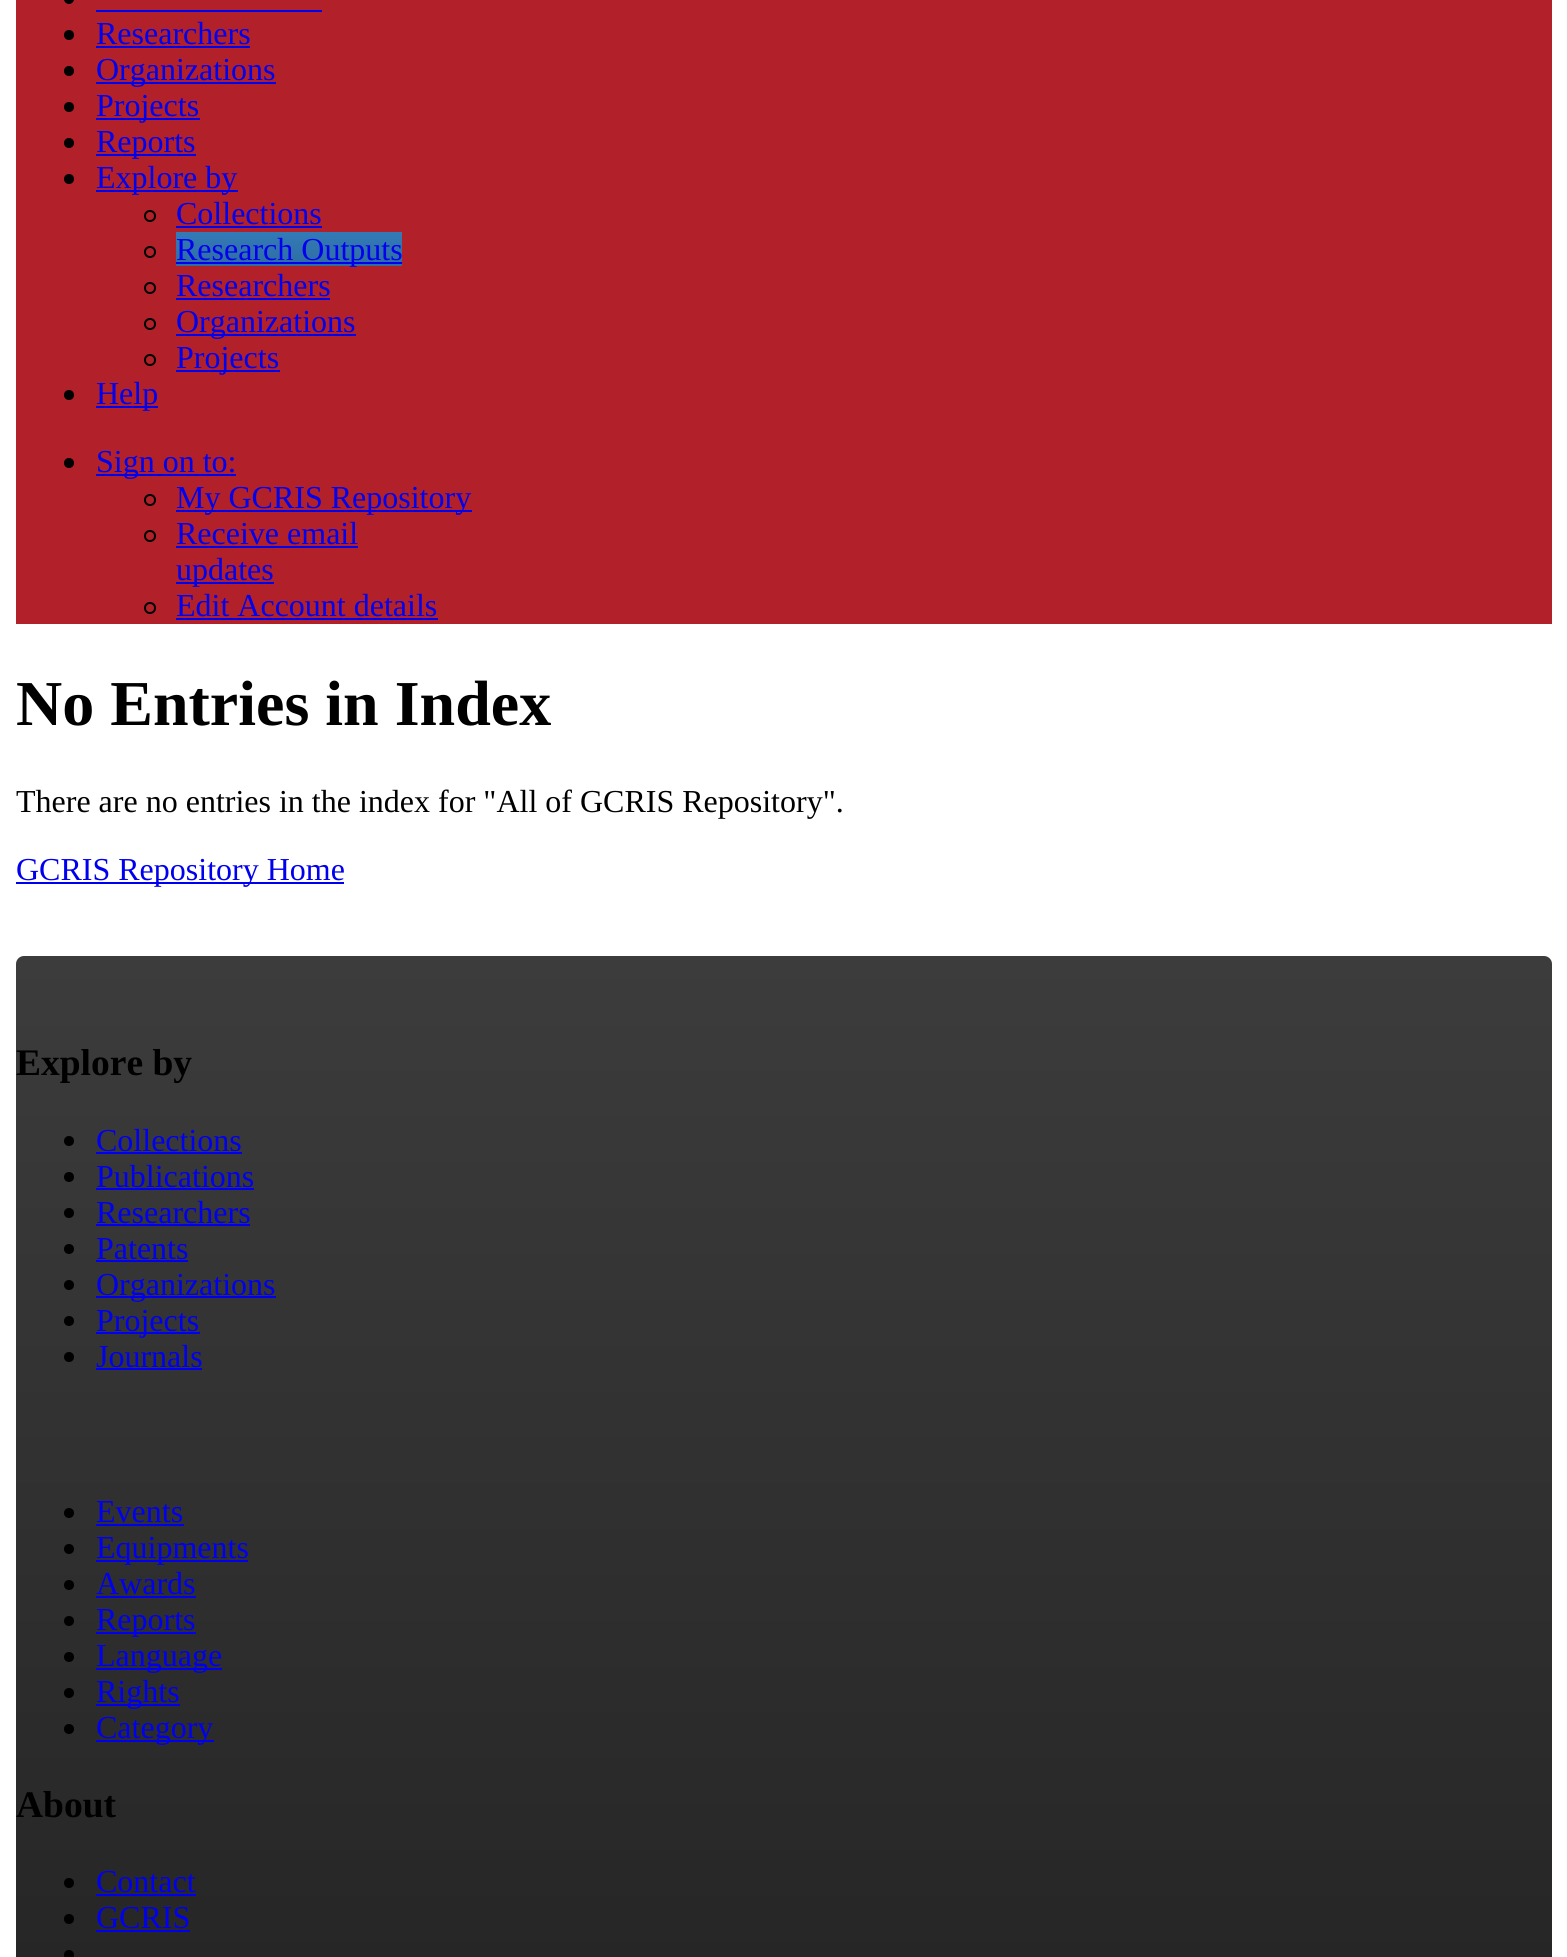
#include <cairo/cairo.h>
#include <math.h>
#include <stddef.h>


static void rounded_rect(cairo_t *cr, double x, double y, double w, double h, double r) {
  cairo_new_sub_path(cr);
  cairo_arc(cr, x + w - r, y + h - r, r, 0, M_PI / 2);
  cairo_arc(cr, x + r, y + h - r, r, M_PI / 2, M_PI);
  cairo_arc(cr, x + r, y + r, r, M_PI, 1.5 * M_PI);
  cairo_arc(cr, x + w - r, y + r, r, 1.5 * M_PI, 2 * M_PI);
  cairo_close_path(cr);
}

static void draw(cairo_t *cr) {
  cairo_pattern_t *gradient;
  cairo_set_source_rgb(cr, 1, 1, 1);
  cairo_paint(cr);
  cairo_set_source_rgb(cr, 178 / 255.0, 32 / 255.0, 41 / 255.0);
  cairo_rectangle(cr, 16, 0, 1536, 624);
  cairo_fill(cr);
  cairo_set_source_rgb(cr, 0, 0, 0);
  rounded_rect(cr, 64, -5, 10, 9, 5);
  cairo_fill(cr);
  cairo_set_source_rgb(cr, 0, 0, 238 / 255.0);
  cairo_rectangle(cr, 96, 10, 226, 2);
  cairo_fill(cr);
  cairo_set_source_rgb(cr, 0, 0, 0);
  cairo_arc(cr, 69, 35, 5, 0, 2 * M_PI);
  cairo_fill(cr);
  cairo_set_source_rgb(cr, 0, 0, 238 / 255.0);
  cairo_rectangle(cr, 96, 46, 154, 2);
  cairo_fill(cr);
  cairo_set_source_rgb(cr, 0, 0, 0);
  cairo_arc(cr, 69, 71, 5, 0, 2 * M_PI);
  cairo_fill(cr);
  cairo_set_source_rgb(cr, 0, 0, 238 / 255.0);
  cairo_rectangle(cr, 96, 82, 180, 2);
  cairo_fill(cr);
  cairo_set_source_rgb(cr, 0, 0, 0);
  cairo_arc(cr, 69, 107, 5, 0, 2 * M_PI);
  cairo_fill(cr);
  cairo_set_source_rgb(cr, 0, 0, 238 / 255.0);
  cairo_rectangle(cr, 96, 118, 104, 2);
  cairo_fill(cr);
  cairo_set_source_rgb(cr, 0, 0, 0);
  cairo_arc(cr, 69, 143, 5, 0, 2 * M_PI);
  cairo_fill(cr);
  cairo_set_source_rgb(cr, 0, 0, 238 / 255.0);
  cairo_rectangle(cr, 96, 154, 100, 2);
  cairo_fill(cr);
  cairo_set_source_rgb(cr, 0, 0, 0);
  cairo_arc(cr, 69, 179, 5, 0, 2 * M_PI);
  cairo_fill(cr);
  cairo_set_source_rgb(cr, 0, 0, 238 / 255.0);
  cairo_rectangle(cr, 96, 190, 142, 2);
  cairo_fill(cr);
  cairo_arc(cr, 150, 216, 5, 0, 2 * M_PI);
  cairo_set_source_rgb(cr, 0, 0, 0);
  cairo_stroke(cr);
  cairo_set_source_rgb(cr, 0, 0, 238 / 255.0);
  cairo_rectangle(cr, 176, 226, 146, 2);
  cairo_fill(cr);
  cairo_arc(cr, 150, 252, 5, 0, 2 * M_PI);
  cairo_set_source_rgb(cr, 0, 0, 0);
  cairo_stroke(cr);
  gradient = cairo_pattern_create_linear(289, 232, 289, 266);
  cairo_pattern_add_color_stop_rgba(gradient, 0, 51 / 255.0, 122 / 255.0, 183 / 255.0, 1);
  cairo_pattern_add_color_stop_rgba(gradient, 1, 46 / 255.0, 109 / 255.0, 164 / 255.0, 1);
  cairo_set_source(cr, gradient);
  cairo_pattern_destroy(gradient);
  cairo_rectangle(cr, 176, 232, 226, 34);
  cairo_fill(cr);
  cairo_set_source_rgb(cr, 0, 0, 238 / 255.0);
  cairo_rectangle(cr, 176, 262, 226, 2);
  cairo_fill(cr);
  cairo_arc(cr, 150, 288, 5, 0, 2 * M_PI);
  cairo_set_source_rgb(cr, 0, 0, 0);
  cairo_stroke(cr);
  cairo_set_source_rgb(cr, 0, 0, 238 / 255.0);
  cairo_rectangle(cr, 176, 298, 154, 2);
  cairo_fill(cr);
  cairo_arc(cr, 150, 324, 5, 0, 2 * M_PI);
  cairo_set_source_rgb(cr, 0, 0, 0);
  cairo_stroke(cr);
  cairo_set_source_rgb(cr, 0, 0, 238 / 255.0);
  cairo_rectangle(cr, 176, 334, 180, 2);
  cairo_fill(cr);
  cairo_arc(cr, 150, 360, 5, 0, 2 * M_PI);
  cairo_set_source_rgb(cr, 0, 0, 0);
  cairo_stroke(cr);
  cairo_set_source_rgb(cr, 0, 0, 238 / 255.0);
  cairo_rectangle(cr, 176, 370, 104, 2);
  cairo_fill(cr);
  cairo_set_source_rgb(cr, 0, 0, 0);
  cairo_arc(cr, 69, 395, 5, 0, 2 * M_PI);
  cairo_fill(cr);
  cairo_set_source_rgb(cr, 0, 0, 238 / 255.0);
  cairo_rectangle(cr, 96, 406, 62, 2);
  cairo_fill(cr);
  cairo_set_source_rgb(cr, 0, 0, 0);
  cairo_arc(cr, 69, 463, 5, 0, 2 * M_PI);
  cairo_fill(cr);
  cairo_set_source_rgb(cr, 0, 0, 238 / 255.0);
  cairo_rectangle(cr, 96, 474, 140, 2);
  cairo_fill(cr);
  cairo_arc(cr, 150, 500, 5, 0, 2 * M_PI);
  cairo_set_source_rgb(cr, 0, 0, 0);
  cairo_stroke(cr);
  cairo_set_source_rgb(cr, 0, 0, 238 / 255.0);
  cairo_rectangle(cr, 176, 510, 296, 2);
  cairo_fill(cr);
  cairo_arc(cr, 150, 536, 5, 0, 2 * M_PI);
  cairo_set_source_rgb(cr, 0, 0, 0);
  cairo_stroke(cr);
  cairo_set_source_rgb(cr, 0, 0, 238 / 255.0);
  cairo_rectangle(cr, 176, 546, 182, 2);
  cairo_fill(cr);
  cairo_rectangle(cr, 176, 582, 98, 2);
  cairo_fill(cr);
  cairo_arc(cr, 150, 608, 5, 0, 2 * M_PI);
  cairo_set_source_rgb(cr, 0, 0, 0);
  cairo_stroke(cr);
  cairo_set_source_rgb(cr, 0, 0, 238 / 255.0);
  cairo_rectangle(cr, 176, 618, 262, 2);
  cairo_fill(cr);
  cairo_rectangle(cr, 16, 882, 328, 2);
  cairo_fill(cr);
  gradient = cairo_pattern_create_linear(784, 956, 784, 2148);
  cairo_pattern_add_color_stop_rgba(gradient, 0, 60 / 255.0, 60 / 255.0, 60 / 255.0, 1);
  cairo_pattern_add_color_stop_rgba(gradient, 1, 34 / 255.0, 34 / 255.0, 34 / 255.0, 1);
  cairo_set_source(cr, gradient);
  cairo_pattern_destroy(gradient);
  rounded_rect(cr, 16, 956, 1536, 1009, 8);
  cairo_fill(cr);
  cairo_set_source_rgb(cr, 0, 0, 0);
  cairo_arc(cr, 69, 1141, 5, 0, 2 * M_PI);
  cairo_fill(cr);
  cairo_set_source_rgb(cr, 0, 0, 238 / 255.0);
  cairo_rectangle(cr, 96, 1152, 146, 2);
  cairo_fill(cr);
  cairo_set_source_rgb(cr, 0, 0, 0);
  cairo_arc(cr, 69, 1177, 5, 0, 2 * M_PI);
  cairo_fill(cr);
  cairo_set_source_rgb(cr, 0, 0, 238 / 255.0);
  cairo_rectangle(cr, 96, 1188, 158, 2);
  cairo_fill(cr);
  cairo_set_source_rgb(cr, 0, 0, 0);
  cairo_arc(cr, 69, 1213, 5, 0, 2 * M_PI);
  cairo_fill(cr);
  cairo_set_source_rgb(cr, 0, 0, 238 / 255.0);
  cairo_rectangle(cr, 96, 1224, 154, 2);
  cairo_fill(cr);
  cairo_set_source_rgb(cr, 0, 0, 0);
  cairo_arc(cr, 69, 1249, 5, 0, 2 * M_PI);
  cairo_fill(cr);
  cairo_set_source_rgb(cr, 0, 0, 238 / 255.0);
  cairo_rectangle(cr, 96, 1260, 92, 2);
  cairo_fill(cr);
  cairo_set_source_rgb(cr, 0, 0, 0);
  cairo_arc(cr, 69, 1285, 5, 0, 2 * M_PI);
  cairo_fill(cr);
  cairo_set_source_rgb(cr, 0, 0, 238 / 255.0);
  cairo_rectangle(cr, 96, 1296, 180, 2);
  cairo_fill(cr);
  cairo_set_source_rgb(cr, 0, 0, 0);
  cairo_arc(cr, 69, 1321, 5, 0, 2 * M_PI);
  cairo_fill(cr);
  cairo_set_source_rgb(cr, 0, 0, 238 / 255.0);
  cairo_rectangle(cr, 96, 1332, 104, 2);
  cairo_fill(cr);
  cairo_set_source_rgb(cr, 0, 0, 0);
  cairo_arc(cr, 69, 1357, 5, 0, 2 * M_PI);
  cairo_fill(cr);
  cairo_set_source_rgb(cr, 0, 0, 238 / 255.0);
  cairo_rectangle(cr, 96, 1368, 106, 2);
  cairo_fill(cr);
  cairo_set_source_rgb(cr, 0, 0, 0);
  cairo_arc(cr, 69, 1513, 5, 0, 2 * M_PI);
  cairo_fill(cr);
  cairo_set_source_rgb(cr, 0, 0, 238 / 255.0);
  cairo_rectangle(cr, 96, 1524, 88, 2);
  cairo_fill(cr);
  cairo_set_source_rgb(cr, 0, 0, 0);
  cairo_arc(cr, 69, 1549, 5, 0, 2 * M_PI);
  cairo_fill(cr);
  cairo_set_source_rgb(cr, 0, 0, 238 / 255.0);
  cairo_rectangle(cr, 96, 1560, 152, 2);
  cairo_fill(cr);
  cairo_set_source_rgb(cr, 0, 0, 0);
  cairo_arc(cr, 69, 1585, 5, 0, 2 * M_PI);
  cairo_fill(cr);
  cairo_set_source_rgb(cr, 0, 0, 238 / 255.0);
  cairo_rectangle(cr, 96, 1596, 100, 2);
  cairo_fill(cr);
  cairo_set_source_rgb(cr, 0, 0, 0);
  cairo_arc(cr, 69, 1621, 5, 0, 2 * M_PI);
  cairo_fill(cr);
  cairo_set_source_rgb(cr, 0, 0, 238 / 255.0);
  cairo_rectangle(cr, 96, 1632, 100, 2);
  cairo_fill(cr);
  cairo_set_source_rgb(cr, 0, 0, 0);
  cairo_arc(cr, 69, 1657, 5, 0, 2 * M_PI);
  cairo_fill(cr);
  cairo_set_source_rgb(cr, 0, 0, 238 / 255.0);
  cairo_rectangle(cr, 96, 1668, 126, 2);
  cairo_fill(cr);
  cairo_set_source_rgb(cr, 0, 0, 0);
  cairo_arc(cr, 69, 1693, 5, 0, 2 * M_PI);
  cairo_fill(cr);
  cairo_set_source_rgb(cr, 0, 0, 238 / 255.0);
  cairo_rectangle(cr, 96, 1704, 84, 2);
  cairo_fill(cr);
  cairo_set_source_rgb(cr, 0, 0, 0);
  cairo_arc(cr, 69, 1729, 5, 0, 2 * M_PI);
  cairo_fill(cr);
  cairo_set_source_rgb(cr, 0, 0, 238 / 255.0);
  cairo_rectangle(cr, 96, 1740, 118, 2);
  cairo_fill(cr);
  cairo_set_source_rgb(cr, 0, 0, 0);
  cairo_arc(cr, 69, 1883, 5, 0, 2 * M_PI);
  cairo_fill(cr);
  cairo_set_source_rgb(cr, 0, 0, 238 / 255.0);
  cairo_rectangle(cr, 96, 1894, 100, 2);
  cairo_fill(cr);
  cairo_set_source_rgb(cr, 0, 0, 0);
  cairo_arc(cr, 69, 1919, 5, 0, 2 * M_PI);
  cairo_fill(cr);
  cairo_set_source_rgb(cr, 0, 0, 238 / 255.0);
  cairo_rectangle(cr, 96, 1930, 94, 2);
  cairo_fill(cr);
  cairo_set_source_rgb(cr, 0, 0, 0);
  cairo_arc(cr, 69, 1955, 5, 0, 2 * M_PI);
  cairo_fill(cr);
  cairo_select_font_face(cr, "Liberation Serif", CAIRO_FONT_SLANT_NORMAL, CAIRO_FONT_WEIGHT_NORMAL);
  cairo_set_font_size(cr, 32);
  cairo_set_source_rgb(cr, 0, 0, 238 / 255.0);
  cairo_move_to(cr, 96, 44);
  cairo_show_text(cr, "Researchers");
  cairo_move_to(cr, 96, 80);
  cairo_show_text(cr, "Organizations");
  cairo_move_to(cr, 96, 116);
  cairo_show_text(cr, "Projects");
  cairo_move_to(cr, 96, 152);
  cairo_show_text(cr, "Reports");
  cairo_move_to(cr, 96, 188);
  cairo_show_text(cr, "Explore by");
  cairo_move_to(cr, 176, 224);
  cairo_show_text(cr, "Collections");
  cairo_move_to(cr, 176, 260);
  cairo_show_text(cr, "Research Outputs");
  cairo_move_to(cr, 176, 296);
  cairo_show_text(cr, "Researchers");
  cairo_move_to(cr, 176, 332);
  cairo_show_text(cr, "Organizations");
  cairo_move_to(cr, 176, 368);
  cairo_show_text(cr, "Projects");
  cairo_move_to(cr, 96, 404);
  cairo_show_text(cr, "Help");
  cairo_move_to(cr, 96, 472);
  cairo_show_text(cr, "Sign on to:");
  cairo_move_to(cr, 176, 508);
  cairo_show_text(cr, "My GCRIS Repository");
  cairo_move_to(cr, 176, 544);
  cairo_show_text(cr, "Receive email");
  cairo_move_to(cr, 176, 580);
  cairo_show_text(cr, "updates");
  cairo_move_to(cr, 176, 616);
  cairo_show_text(cr, "Edit Account details");
  cairo_select_font_face(cr, "Liberation Serif", CAIRO_FONT_SLANT_NORMAL, CAIRO_FONT_WEIGHT_BOLD);
  cairo_set_font_size(cr, 64);
  cairo_set_source_rgb(cr, 0, 0, 0);
  cairo_move_to(cr, 16, 725);
  cairo_show_text(cr, "No Entries in Index");
  cairo_select_font_face(cr, "Liberation Serif", CAIRO_FONT_SLANT_NORMAL, CAIRO_FONT_WEIGHT_NORMAL);
  cairo_set_font_size(cr, 32);
  cairo_move_to(cr, 16, 812);
  cairo_show_text(cr, "There are no entries in the index for \"All of GCRIS Repository\".");
  cairo_set_source_rgb(cr, 0, 0, 238 / 255.0);
  cairo_move_to(cr, 16, 880);
  cairo_show_text(cr, "GCRIS Repository Home");
  cairo_select_font_face(cr, "Liberation Serif", CAIRO_FONT_SLANT_NORMAL, CAIRO_FONT_WEIGHT_BOLD);
  cairo_set_font_size(cr, 37.5);
  cairo_set_source_rgb(cr, 0, 0, 0);
  cairo_move_to(cr, 16, 1075);
  cairo_show_text(cr, "Explore by");
  cairo_select_font_face(cr, "Liberation Serif", CAIRO_FONT_SLANT_NORMAL, CAIRO_FONT_WEIGHT_NORMAL);
  cairo_set_font_size(cr, 32);
  cairo_set_source_rgb(cr, 0, 0, 238 / 255.0);
  cairo_move_to(cr, 96, 1151);
  cairo_show_text(cr, "Collections");
  cairo_move_to(cr, 96, 1187);
  cairo_show_text(cr, "Publications");
  cairo_move_to(cr, 96, 1223);
  cairo_show_text(cr, "Researchers");
  cairo_move_to(cr, 96, 1259);
  cairo_show_text(cr, "Patents");
  cairo_move_to(cr, 96, 1295);
  cairo_show_text(cr, "Organizations");
  cairo_move_to(cr, 96, 1331);
  cairo_show_text(cr, "Projects");
  cairo_move_to(cr, 96, 1367);
  cairo_show_text(cr, "Journals");
  cairo_move_to(cr, 96, 1522);
  cairo_show_text(cr, "Events");
  cairo_move_to(cr, 96, 1558);
  cairo_show_text(cr, "Equipments");
  cairo_move_to(cr, 96, 1594);
  cairo_show_text(cr, "Awards");
  cairo_move_to(cr, 96, 1630);
  cairo_show_text(cr, "Reports");
  cairo_move_to(cr, 96, 1666);
  cairo_show_text(cr, "Language");
  cairo_move_to(cr, 96, 1702);
  cairo_show_text(cr, "Rights");
  cairo_move_to(cr, 96, 1738);
  cairo_show_text(cr, "Category");
  cairo_select_font_face(cr, "Liberation Serif", CAIRO_FONT_SLANT_NORMAL, CAIRO_FONT_WEIGHT_BOLD);
  cairo_set_font_size(cr, 37.5);
  cairo_set_source_rgb(cr, 0, 0, 0);
  cairo_move_to(cr, 16, 1817);
  cairo_show_text(cr, "About");
  cairo_select_font_face(cr, "Liberation Serif", CAIRO_FONT_SLANT_NORMAL, CAIRO_FONT_WEIGHT_NORMAL);
  cairo_set_font_size(cr, 32);
  cairo_set_source_rgb(cr, 0, 0, 238 / 255.0);
  cairo_move_to(cr, 96, 1892);
  cairo_show_text(cr, "Contact");
  cairo_move_to(cr, 96, 1928);
  cairo_show_text(cr, "GCRIS");
}

int main(void) {
  cairo_surface_t *surface = cairo_image_surface_create(CAIRO_FORMAT_RGB24, 1567, 1957);
  cairo_t *cr = cairo_create(surface);
  cairo_font_options_t *options = cairo_font_options_create();
  cairo_font_options_set_hint_metrics(options, CAIRO_HINT_METRICS_OFF);
  cairo_font_options_set_hint_style(options, CAIRO_HINT_STYLE_NONE);
  cairo_set_font_options(cr, options);
  cairo_set_miter_limit(cr, 4);
  draw(cr);
  cairo_surface_write_to_png(surface, "out.png");
  cairo_font_options_destroy(options);
  cairo_destroy(cr);
  cairo_surface_destroy(surface);
  return 0;
}
